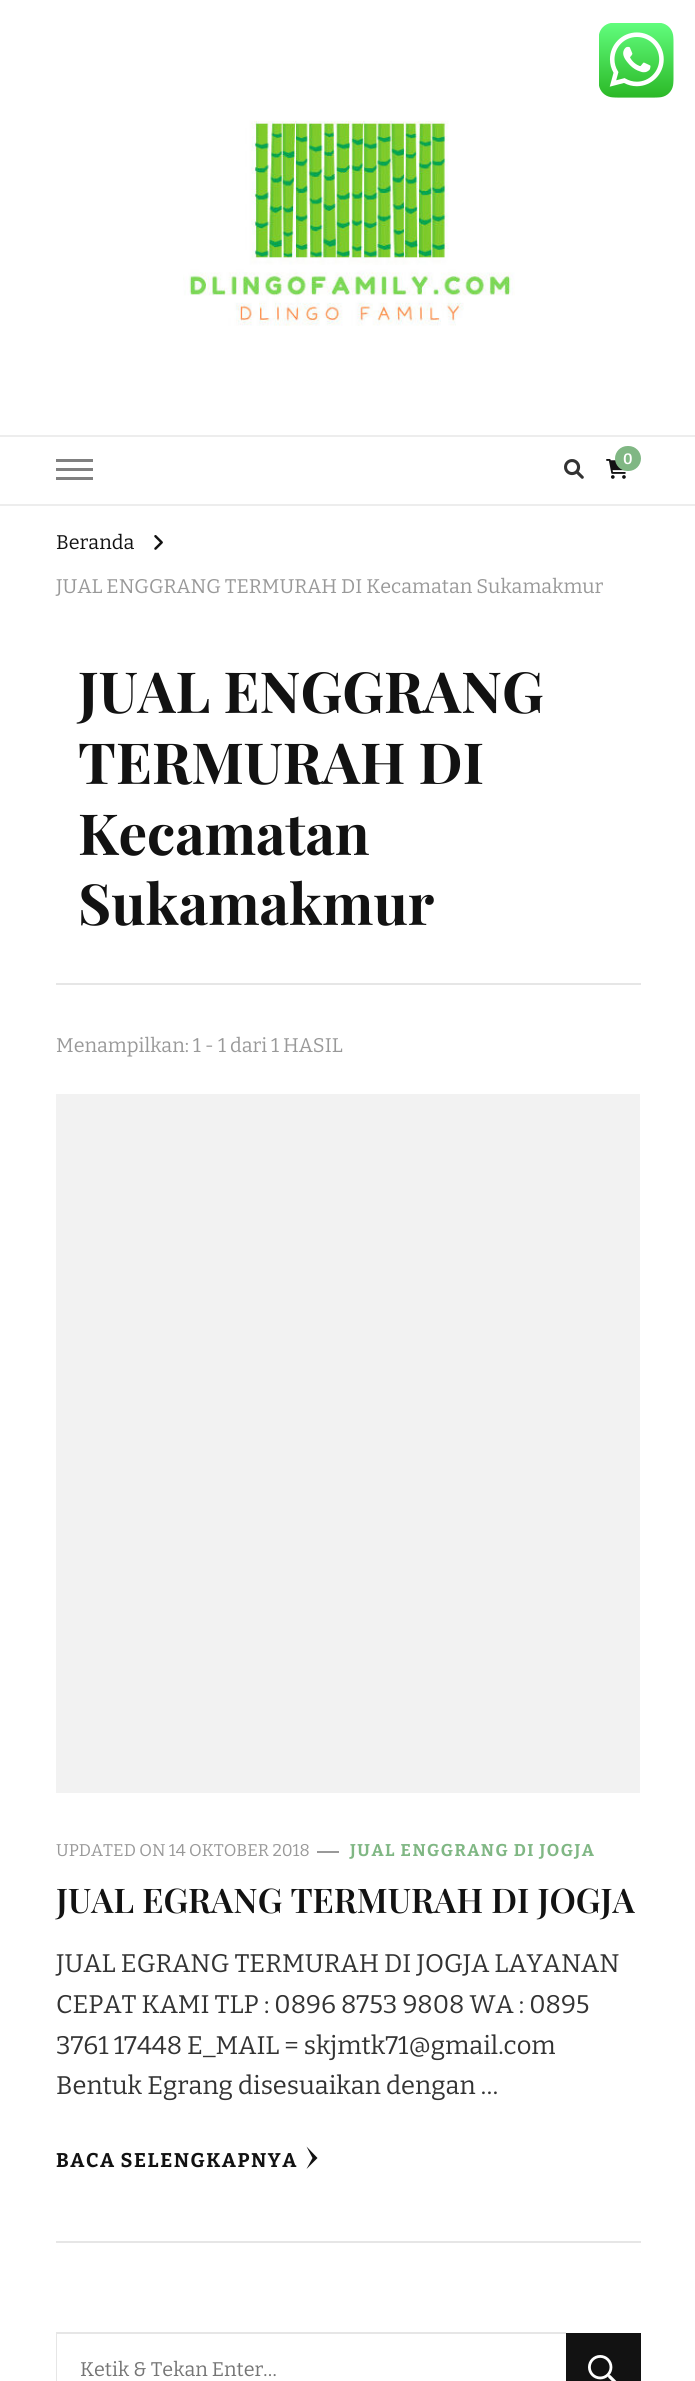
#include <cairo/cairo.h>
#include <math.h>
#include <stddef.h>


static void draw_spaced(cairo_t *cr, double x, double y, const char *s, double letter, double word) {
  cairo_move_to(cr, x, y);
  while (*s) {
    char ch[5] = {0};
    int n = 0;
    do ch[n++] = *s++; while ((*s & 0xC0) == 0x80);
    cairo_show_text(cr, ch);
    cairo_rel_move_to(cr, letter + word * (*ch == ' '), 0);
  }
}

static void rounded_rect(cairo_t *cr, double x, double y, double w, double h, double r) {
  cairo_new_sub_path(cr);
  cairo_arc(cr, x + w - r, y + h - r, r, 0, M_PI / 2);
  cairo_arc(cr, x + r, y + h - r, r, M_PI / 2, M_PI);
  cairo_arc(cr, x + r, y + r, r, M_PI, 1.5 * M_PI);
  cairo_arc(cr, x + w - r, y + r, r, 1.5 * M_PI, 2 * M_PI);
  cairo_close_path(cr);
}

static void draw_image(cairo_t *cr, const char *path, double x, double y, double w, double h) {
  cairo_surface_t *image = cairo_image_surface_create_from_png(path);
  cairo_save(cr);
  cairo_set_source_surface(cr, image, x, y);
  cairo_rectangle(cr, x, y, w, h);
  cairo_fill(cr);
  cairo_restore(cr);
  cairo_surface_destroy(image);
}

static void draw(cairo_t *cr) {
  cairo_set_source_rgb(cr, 1, 1, 1);
  cairo_paint(cr);
  draw_image(cr, "images/1.png", 599, 23, 75, 75);
  draw_image(cr, "images/2.png", 183, 120, 332, 206);
  cairo_set_source_rgb(cr, 237 / 255.0, 237 / 255.0, 237 / 255.0);
  cairo_rectangle(cr, 0, 435, 695, 2);
  cairo_fill(cr);
  cairo_rectangle(cr, 0, 504, 695, 2);
  cairo_fill(cr);
  cairo_set_source_rgb(cr, 128 / 255.0, 128 / 255.0, 128 / 255.0);
  cairo_rectangle(cr, 56, 459, 37, 3);
  cairo_fill(cr);
  cairo_rectangle(cr, 56, 468, 37, 3);
  cairo_fill(cr);
  cairo_rectangle(cr, 56, 477, 37, 3);
  cairo_fill(cr);
  draw_image(cr, "images/3.png", 564, 459, 20, 20);
  draw_image(cr, "images/4.png", 606, 459, 20, 20);
  cairo_set_source_rgb(cr, 128 / 255.0, 183 / 255.0, 132 / 255.0);
  rounded_rect(cr, 615, 446, 26, 25, 12.5);
  cairo_fill(cr);
  draw_image(cr, "images/5.png", 154, 535, 9, 15);
  cairo_set_source_rgb(cr, 230 / 255.0, 230 / 255.0, 230 / 255.0);
  cairo_rectangle(cr, 56, 983, 585, 2);
  cairo_fill(cr);
  cairo_rectangle(cr, 56, 2241, 585, 2);
  cairo_fill(cr);
  cairo_set_source_rgb(cr, 242 / 255.0, 242 / 255.0, 242 / 255.0);
  cairo_rectangle(cr, 56, 1094, 584, 699);
  cairo_fill(cr);
  cairo_set_source_rgb(cr, 153 / 255.0, 153 / 255.0, 153 / 255.0);
  cairo_rectangle(cr, 317, 1851, 22, 2);
  cairo_fill(cr);
  cairo_set_source_rgb(cr, 18 / 255.0, 18 / 255.0, 18 / 255.0);
  cairo_new_path(cr);
  cairo_move_to(cr, 317.5, 2158);
  cairo_line_to(cr, 306.5, 2169);
  cairo_line_to(cr, 312.5, 2158);
  cairo_line_to(cr, 306.5, 2146.5);
  cairo_close_path(cr);
  cairo_fill(cr);
  cairo_set_source_rgb(cr, 230 / 255.0, 230 / 255.0, 230 / 255.0);
  cairo_new_path(cr);
  cairo_move_to(cr, 56, 2332);
  cairo_line_to(cr, 566, 2332);
  cairo_line_to(cr, 566, 2334);
  cairo_line_to(cr, 57, 2334);
  cairo_close_path(cr);
  cairo_fill(cr);
  cairo_set_source_rgba(cr, 0, 0, 0, 0.1);
  cairo_new_path(cr);
  cairo_move_to(cr, 56, 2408);
  cairo_line_to(cr, 56, 2332);
  cairo_line_to(cr, 57, 2334);
  cairo_line_to(cr, 57, 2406);
  cairo_close_path(cr);
  cairo_fill(cr);
  cairo_set_source_rgb(cr, 18 / 255.0, 18 / 255.0, 18 / 255.0);
  cairo_rectangle(cr, 566, 2333, 75, 48);
  cairo_fill(cr);
  draw_image(cr, "images/6.png", 588, 2355, 29, 26);
  cairo_select_font_face(cr, "Bitter SemiBold", CAIRO_FONT_SLANT_NORMAL, CAIRO_FONT_WEIGHT_NORMAL);
  cairo_set_font_size(cr, 15);
  cairo_set_source_rgb(cr, 1, 1, 1);
  cairo_move_to(cr, 623, 464);
  cairo_show_text(cr, "0");
  cairo_select_font_face(cr, "Bitter", CAIRO_FONT_SLANT_NORMAL, CAIRO_FONT_WEIGHT_NORMAL);
  cairo_set_font_size(cr, 19.8);
  cairo_set_source_rgb(cr, 18 / 255.0, 18 / 255.0, 18 / 255.0);
  cairo_move_to(cr, 56, 549);
  cairo_show_text(cr, "Beranda");
  cairo_set_source_rgb(cr, 153 / 255.0, 153 / 255.0, 153 / 255.0);
  cairo_move_to(cr, 56, 593);
  cairo_show_text(cr, "JUAL ENGGRANG TERMURAH DI Kecamatan Sukamakmur");
  cairo_select_font_face(cr, "Playfair Display", CAIRO_FONT_SLANT_NORMAL, CAIRO_FONT_WEIGHT_BOLD);
  cairo_set_font_size(cr, 56.75);
  cairo_set_source_rgb(cr, 18 / 255.0, 18 / 255.0, 18 / 255.0);
  cairo_move_to(cr, 78, 713);
  cairo_show_text(cr, "JUAL ENGGRANG");
  cairo_move_to(cr, 78, 784);
  cairo_show_text(cr, "TERMURAH DI");
  cairo_move_to(cr, 78, 855);
  cairo_show_text(cr, "Kecamatan");
  cairo_move_to(cr, 78, 925);
  cairo_show_text(cr, "Sukamakmur");
  cairo_select_font_face(cr, "Bitter", CAIRO_FONT_SLANT_NORMAL, CAIRO_FONT_WEIGHT_NORMAL);
  cairo_set_font_size(cr, 19.8);
  cairo_set_source_rgb(cr, 153 / 255.0, 153 / 255.0, 153 / 255.0);
  cairo_move_to(cr, 56, 1052);
  cairo_show_text(cr, "Menampilkan: 1 - 1 dari 1 HASIL");
  cairo_set_font_size(cr, 17);
  cairo_move_to(cr, 56, 1856);
  cairo_show_text(cr, "UPDATED ON 14 OKTOBER 2018");
  cairo_select_font_face(cr, "Bitter", CAIRO_FONT_SLANT_NORMAL, CAIRO_FONT_WEIGHT_BOLD);
  cairo_set_source_rgb(cr, 128 / 255.0, 183 / 255.0, 132 / 255.0);
  draw_spaced(cr, 350, 1856, "JUAL ENGGRANG DI JOGJA", 1.5, 0);
  cairo_select_font_face(cr, "Playfair Display SemiBold", CAIRO_FONT_SLANT_NORMAL, CAIRO_FONT_WEIGHT_NORMAL);
  cairo_set_font_size(cr, 34);
  cairo_set_source_rgb(cr, 18 / 255.0, 18 / 255.0, 18 / 255.0);
  cairo_move_to(cr, 56, 1913);
  cairo_show_text(cr, "JUAL EGRANG TERMURAH DI JOGJA");
  cairo_select_font_face(cr, "Bitter", CAIRO_FONT_SLANT_NORMAL, CAIRO_FONT_WEIGHT_NORMAL);
  cairo_set_font_size(cr, 25.5);
  cairo_set_source_rgb(cr, 51 / 255.0, 51 / 255.0, 51 / 255.0);
  cairo_move_to(cr, 56, 1972);
  cairo_show_text(cr, "JUAL EGRANG TERMURAH DI JOGJA LAYANAN");
  cairo_move_to(cr, 56, 2013);
  cairo_show_text(cr, "CEPAT KAMI TLP : 0896 8753 9808 WA : 0895");
  cairo_move_to(cr, 56, 2054);
  cairo_show_text(cr, "3761 17448 E_MAIL = skjmtk71@gmail.com");
  cairo_move_to(cr, 56, 2094);
  cairo_show_text(cr, "Bentuk Egrang disesuaikan dengan …");
  cairo_select_font_face(cr, "Bitter", CAIRO_FONT_SLANT_NORMAL, CAIRO_FONT_WEIGHT_BOLD);
  cairo_set_font_size(cr, 19.8);
  cairo_set_source_rgb(cr, 18 / 255.0, 18 / 255.0, 18 / 255.0);
  draw_spaced(cr, 56, 2167, "BACA SELENGKAPNYA", 1.5, 0);
  cairo_select_font_face(cr, "Bitter", CAIRO_FONT_SLANT_NORMAL, CAIRO_FONT_WEIGHT_NORMAL);
  cairo_set_source_rgb(cr, 117 / 255.0, 117 / 255.0, 117 / 255.0);
  cairo_move_to(cr, 80, 2376);
  cairo_show_text(cr, "Ketik & Tekan Enter…");
}

int main(void) {
  cairo_surface_t *surface = cairo_image_surface_create(CAIRO_FORMAT_RGB24, 695, 2381);
  cairo_t *cr = cairo_create(surface);
  cairo_font_options_t *options = cairo_font_options_create();
  cairo_font_options_set_hint_metrics(options, CAIRO_HINT_METRICS_OFF);
  cairo_font_options_set_hint_style(options, CAIRO_HINT_STYLE_NONE);
  cairo_set_font_options(cr, options);
  cairo_set_miter_limit(cr, 4);
  draw(cr);
  cairo_surface_write_to_png(surface, "out.png");
  cairo_font_options_destroy(options);
  cairo_destroy(cr);
  cairo_surface_destroy(surface);
  return 0;
}
